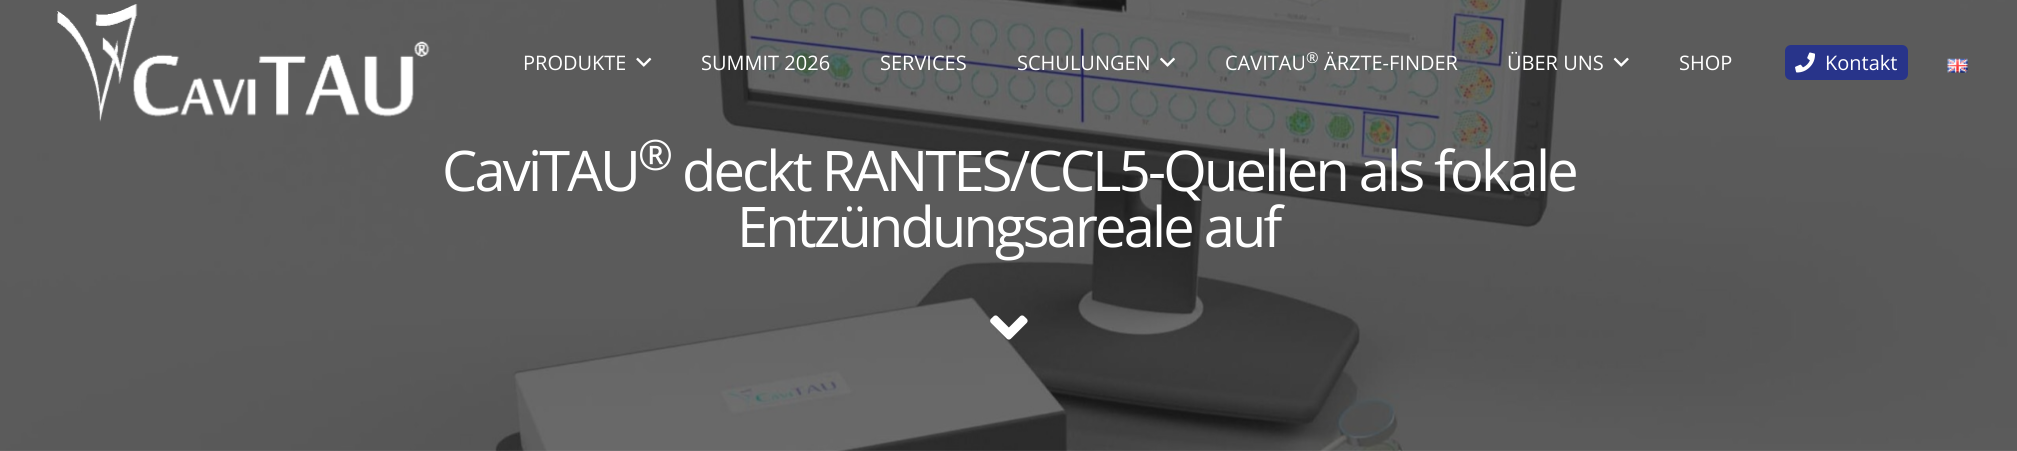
#include <cairo/cairo.h>
#include <math.h>
#include <stddef.h>


static void draw_spaced(cairo_t *cr, double x, double y, const char *s, double letter, double word) {
  cairo_move_to(cr, x, y);
  while (*s) {
    char ch[5] = {0};
    int n = 0;
    do ch[n++] = *s++; while ((*s & 0xC0) == 0x80);
    cairo_show_text(cr, ch);
    cairo_rel_move_to(cr, letter + word * (*ch == ' '), 0);
  }
}

static void rounded_rect(cairo_t *cr, double x, double y, double w, double h, double r) {
  cairo_new_sub_path(cr);
  cairo_arc(cr, x + w - r, y + h - r, r, 0, M_PI / 2);
  cairo_arc(cr, x + r, y + h - r, r, M_PI / 2, M_PI);
  cairo_arc(cr, x + r, y + r, r, M_PI, 1.5 * M_PI);
  cairo_arc(cr, x + w - r, y + r, r, 1.5 * M_PI, 2 * M_PI);
  cairo_close_path(cr);
}

static void draw_image(cairo_t *cr, const char *path, double x, double y, double w, double h) {
  cairo_surface_t *image = cairo_image_surface_create_from_png(path);
  cairo_save(cr);
  cairo_set_source_surface(cr, image, x, y);
  cairo_rectangle(cr, x, y, w, h);
  cairo_fill(cr);
  cairo_restore(cr);
  cairo_surface_destroy(image);
}

static void draw(cairo_t *cr) {
  cairo_set_source_rgb(cr, 1, 1, 1);
  cairo_paint(cr);
  draw_image(cr, "images/7.png", 0, 0, 2017, 451);
  draw_image(cr, "images/1.png", 57, 4, 373, 118);
  draw_image(cr, "images/2.png", 636, 57, 16, 10);
  draw_image(cr, "images/3.png", 1160, 57, 15, 10);
  draw_image(cr, "images/4.png", 1613, 57, 16, 10);
  cairo_set_source_rgb(cr, 40 / 255.0, 52 / 255.0, 138 / 255.0);
  rounded_rect(cr, 1785, 45, 123, 35, 6);
  cairo_fill(cr);
  draw_image(cr, "images/5.png", 1795, 52, 20, 21);
  draw_image(cr, "images/6.png", 1947, 58, 21, 15);
  draw_image(cr, "images/8.png", 990, 315, 38, 25);
  cairo_select_font_face(cr, "Open Sans", CAIRO_FONT_SLANT_NORMAL, CAIRO_FONT_WEIGHT_NORMAL);
  cairo_set_font_size(cr, 20);
  cairo_set_source_rgb(cr, 1, 1, 1);
  cairo_move_to(cr, 523, 70);
  cairo_show_text(cr, "PRODUKTE");
  cairo_move_to(cr, 701, 70);
  cairo_show_text(cr, "SUMMIT 2026");
  cairo_move_to(cr, 880, 70);
  cairo_show_text(cr, "SERVICES");
  cairo_move_to(cr, 1017, 70);
  cairo_show_text(cr, "SCHULUNGEN");
  cairo_move_to(cr, 1225, 70);
  cairo_show_text(cr, "CAVITAU");
  cairo_set_font_size(cr, 15);
  cairo_move_to(cr, 1306, 63);
  cairo_show_text(cr, "®");
  cairo_set_font_size(cr, 20);
  cairo_move_to(cr, 1324, 70);
  cairo_show_text(cr, "ÄRZTE-FINDER");
  cairo_move_to(cr, 1507, 70);
  cairo_show_text(cr, "ÜBER UNS");
  cairo_move_to(cr, 1679, 70);
  cairo_show_text(cr, "SHOP");
  cairo_move_to(cr, 1825, 70);
  cairo_show_text(cr, "Kontakt");
  cairo_set_font_size(cr, 56);
  draw_spaced(cr, 442, 191, "CaviTAU", -2.8, 0);
  cairo_set_font_size(cr, 42);
  draw_spaced(cr, 638, 170, "®", -2.8, 0);
  cairo_set_font_size(cr, 56);
  draw_spaced(cr, 682, 191, "deckt RANTES/CCL5-Quellen als fokale", -2.8, 0);
  draw_spaced(cr, 737, 247, "Entzündungsareale auf", -2.8, 0);
}

int main(void) {
  cairo_surface_t *surface = cairo_image_surface_create(CAIRO_FORMAT_RGB24, 2017, 451);
  cairo_t *cr = cairo_create(surface);
  cairo_font_options_t *options = cairo_font_options_create();
  cairo_font_options_set_hint_metrics(options, CAIRO_HINT_METRICS_OFF);
  cairo_font_options_set_hint_style(options, CAIRO_HINT_STYLE_NONE);
  cairo_set_font_options(cr, options);
  cairo_set_miter_limit(cr, 4);
  draw(cr);
  cairo_surface_write_to_png(surface, "out.png");
  cairo_font_options_destroy(options);
  cairo_destroy(cr);
  cairo_surface_destroy(surface);
  return 0;
}
